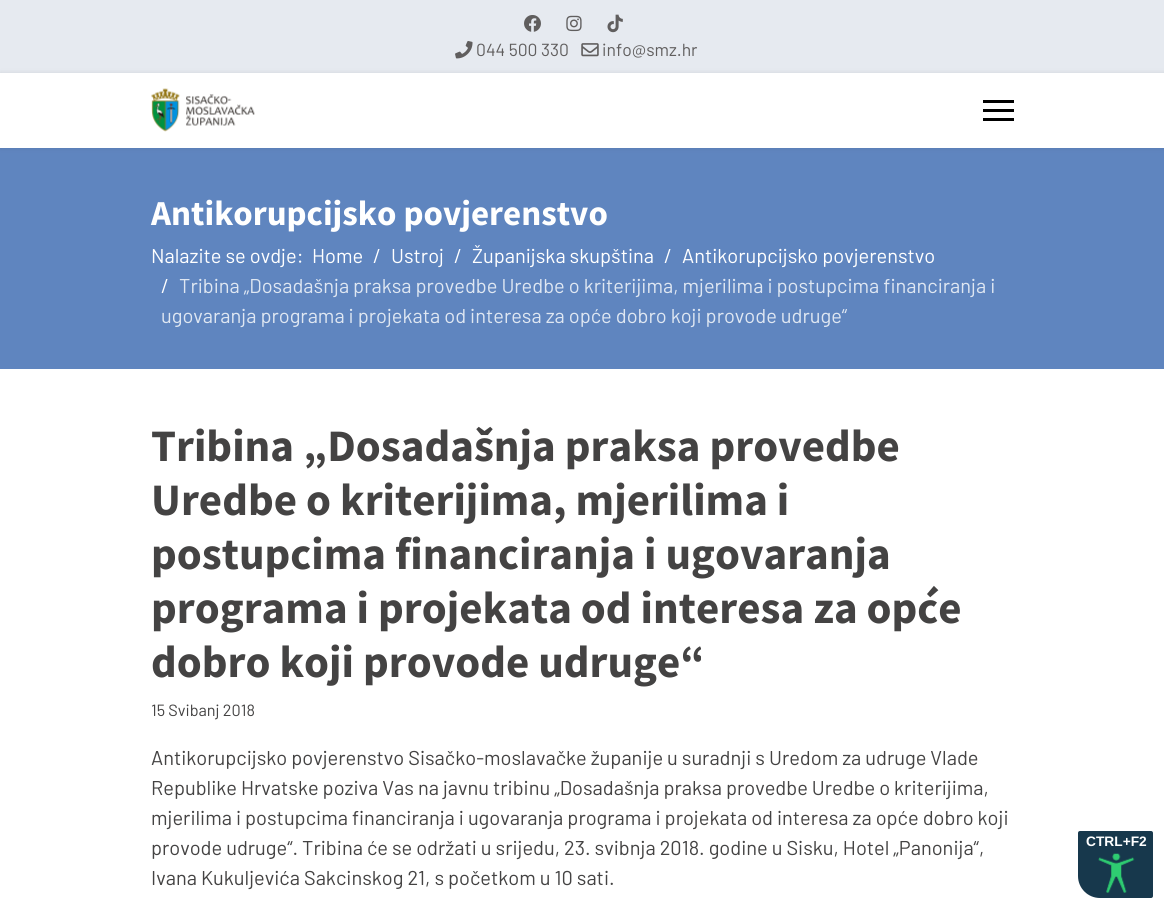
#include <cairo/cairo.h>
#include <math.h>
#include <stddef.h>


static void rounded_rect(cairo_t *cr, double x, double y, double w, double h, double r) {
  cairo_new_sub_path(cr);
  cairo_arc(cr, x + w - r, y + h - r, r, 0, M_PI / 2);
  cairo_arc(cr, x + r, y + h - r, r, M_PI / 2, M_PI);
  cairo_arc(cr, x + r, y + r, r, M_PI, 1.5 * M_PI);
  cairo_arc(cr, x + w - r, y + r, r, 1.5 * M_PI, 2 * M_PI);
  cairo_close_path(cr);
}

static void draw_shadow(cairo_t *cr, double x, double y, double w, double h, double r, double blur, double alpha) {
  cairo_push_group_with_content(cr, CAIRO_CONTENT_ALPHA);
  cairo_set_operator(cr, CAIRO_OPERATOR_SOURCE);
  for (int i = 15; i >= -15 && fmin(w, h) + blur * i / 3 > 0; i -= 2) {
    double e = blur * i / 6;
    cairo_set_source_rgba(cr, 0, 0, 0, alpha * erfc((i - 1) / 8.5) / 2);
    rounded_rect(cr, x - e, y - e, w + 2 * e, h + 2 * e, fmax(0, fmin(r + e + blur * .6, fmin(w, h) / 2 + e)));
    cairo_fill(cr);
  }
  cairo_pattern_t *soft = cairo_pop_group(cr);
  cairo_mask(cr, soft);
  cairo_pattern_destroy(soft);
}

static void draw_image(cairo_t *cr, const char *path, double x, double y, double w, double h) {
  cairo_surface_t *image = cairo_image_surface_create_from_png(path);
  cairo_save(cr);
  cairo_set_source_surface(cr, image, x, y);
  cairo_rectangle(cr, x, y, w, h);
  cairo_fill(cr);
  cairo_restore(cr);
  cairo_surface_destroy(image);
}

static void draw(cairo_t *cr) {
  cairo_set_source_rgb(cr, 1, 1, 1);
  cairo_paint(cr);
  cairo_set_source_rgb(cr, 230 / 255.0, 234 / 255.0, 240 / 255.0);
  cairo_rectangle(cr, 0, 0, 1164, 73);
  cairo_fill(cr);
  draw_image(cr, "images/1.png", 524, 15, 17, 17);
  draw_image(cr, "images/2.png", 566, 15, 16, 17);
  draw_image(cr, "images/3.png", 607, 14, 16, 19);
  draw_image(cr, "images/4.png", 455, 41, 18, 18);
  draw_image(cr, "images/5.png", 581, 43, 18, 14);
  cairo_set_source_rgb(cr, 95 / 255.0, 133 / 255.0, 191 / 255.0);
  cairo_rectangle(cr, 0, 148, 1164, 221);
  cairo_fill(cr);
  cairo_set_source_rgb(cr, 0, 0, 0);
  draw_shadow(cr, 0, 73, 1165, 75, 0, 2.5, 0.1);
  cairo_set_source_rgb(cr, 1, 1, 1);
  cairo_rectangle(cr, 0, 73, 1164, 75);
  cairo_fill(cr);
  draw_image(cr, "images/6.png", 151, 88, 104, 44);
  cairo_set_source_rgb(cr, 0, 0, 0);
  cairo_rectangle(cr, 983, 100, 31, 3);
  cairo_fill(cr);
  cairo_rectangle(cr, 983, 109, 31, 3);
  cairo_fill(cr);
  cairo_rectangle(cr, 983, 118, 31, 3);
  cairo_fill(cr);
  cairo_set_source_rgb(cr, 23 / 255.0, 56 / 255.0, 76 / 255.0);
  cairo_new_path(cr);
  cairo_move_to(cr, 1080, 829.5);
  cairo_line_to(cr, 1151, 829.5);
  cairo_curve_to(cr, 1153, 829.5, 1154.5, 831, 1154.5, 833);
  cairo_line_to(cr, 1154.5, 896);
  cairo_curve_to(cr, 1154.5, 898, 1153, 899.5, 1151, 899.5);
  cairo_line_to(cr, 1100, 899.5);
  cairo_curve_to(cr, 1087, 899.5, 1076.5, 889, 1076.5, 876);
  cairo_line_to(cr, 1076.5, 833);
  cairo_curve_to(cr, 1076.5, 831, 1078, 829.5, 1080, 829.5);
  cairo_close_path(cr);
  cairo_fill_preserve(cr);
  cairo_set_source_rgb(cr, 1, 1, 1);
  cairo_set_line_width(cr, 3);
  cairo_stroke(cr);
  draw_image(cr, "images/7.png", 1098, 853, 37, 40);
  cairo_select_font_face(cr, "Barlow", CAIRO_FONT_SLANT_NORMAL, CAIRO_FONT_WEIGHT_NORMAL);
  cairo_set_font_size(cr, 17.5);
  cairo_set_source_rgb(cr, 96 / 255.0, 94 / 255.0, 94 / 255.0);
  cairo_move_to(cr, 476, 56);
  cairo_show_text(cr, "044 500 330");
  cairo_move_to(cr, 602, 56);
  cairo_show_text(cr, "info@smz.hr");
  cairo_select_font_face(cr, "Source Sans Pro", CAIRO_FONT_SLANT_NORMAL, CAIRO_FONT_WEIGHT_BOLD);
  cairo_set_font_size(cr, 35);
  cairo_set_source_rgb(cr, 1, 1, 1);
  cairo_move_to(cr, 151, 225);
  cairo_show_text(cr, "Antikorupcijsko povjerenstvo");
  cairo_select_font_face(cr, "Barlow", CAIRO_FONT_SLANT_NORMAL, CAIRO_FONT_WEIGHT_NORMAL);
  cairo_set_font_size(cr, 20);
  cairo_move_to(cr, 151, 263);
  cairo_show_text(cr, "Nalazite se ovdje:");
  cairo_move_to(cr, 312, 263);
  cairo_show_text(cr, "Home");
  cairo_move_to(cr, 373, 263);
  cairo_show_text(cr, "/");
  cairo_move_to(cr, 391, 263);
  cairo_show_text(cr, "Ustroj");
  cairo_move_to(cr, 454, 263);
  cairo_show_text(cr, "/");
  cairo_move_to(cr, 472, 263);
  cairo_show_text(cr, "Županijska skupština");
  cairo_move_to(cr, 664, 263);
  cairo_show_text(cr, "/");
  cairo_move_to(cr, 682, 263);
  cairo_show_text(cr, "Antikorupcijsko povjerenstvo");
  cairo_move_to(cr, 161, 293);
  cairo_show_text(cr, "/");
  cairo_set_source_rgb(cr, 223 / 255.0, 231 / 255.0, 242 / 255.0);
  cairo_move_to(cr, 179, 293);
  cairo_show_text(cr, "Tribina „Dosadašnja praksa provedbe Uredbe o kriterijima, mjerilima i postupcima financiranja i");
  cairo_move_to(cr, 161, 323);
  cairo_show_text(cr, "ugovaranja programa i projekata od interesa za opće dobro koji provode udruge“");
  cairo_select_font_face(cr, "Source Sans Pro", CAIRO_FONT_SLANT_NORMAL, CAIRO_FONT_WEIGHT_BOLD);
  cairo_set_font_size(cr, 45);
  cairo_set_source_rgb(cr, 68 / 255.0, 67 / 255.0, 67 / 255.0);
  cairo_move_to(cr, 151, 461);
  cairo_show_text(cr, "Tribina „Dosadašnja praksa provedbe");
  cairo_move_to(cr, 151, 515);
  cairo_show_text(cr, "Uredbe o kriterijima, mjerilima i");
  cairo_move_to(cr, 151, 569);
  cairo_show_text(cr, "postupcima financiranja i ugovaranja");
  cairo_move_to(cr, 151, 623);
  cairo_show_text(cr, "programa i projekata od interesa za opće");
  cairo_move_to(cr, 151, 677);
  cairo_show_text(cr, "dobro koji provode udruge“");
  cairo_select_font_face(cr, "Barlow", CAIRO_FONT_SLANT_NORMAL, CAIRO_FONT_WEIGHT_NORMAL);
  cairo_set_font_size(cr, 16.25);
  cairo_move_to(cr, 151, 716);
  cairo_show_text(cr, "15 Svibanj 2018");
  cairo_set_font_size(cr, 20);
  cairo_move_to(cr, 151, 765);
  cairo_show_text(cr, "Antikorupcijsko povjerenstvo Sisačko-moslavačke županije u suradnji s Uredom za udruge Vlade");
  cairo_move_to(cr, 151, 795);
  cairo_show_text(cr, "Republike Hrvatske poziva Vas na javnu tribinu „Dosadašnja praksa provedbe Uredbe o kriterijima,");
  cairo_move_to(cr, 151, 825);
  cairo_show_text(cr, "mjerilima i postupcima financiranja i ugovaranja programa i projekata od interesa za opće dobro koji");
  cairo_move_to(cr, 151, 855);
  cairo_show_text(cr, "provode udruge“. Tribina će se održati u srijedu, 23. svibnja 2018. godine u Sisku, Hotel „Panonija“,");
  cairo_move_to(cr, 151, 885);
  cairo_show_text(cr, "Ivana Kukuljevića Sakcinskog 21, s početkom u 10 sati.");
  cairo_select_font_face(cr, "Liberation Sans", CAIRO_FONT_SLANT_NORMAL, CAIRO_FONT_WEIGHT_BOLD);
  cairo_set_font_size(cr, 13.75);
  cairo_set_source_rgb(cr, 1, 1, 1);
  cairo_move_to(cr, 1086, 846);
  cairo_show_text(cr, "CTRL+F2");
}

int main(void) {
  cairo_surface_t *surface = cairo_image_surface_create(CAIRO_FORMAT_RGB24, 1164, 910);
  cairo_t *cr = cairo_create(surface);
  cairo_font_options_t *options = cairo_font_options_create();
  cairo_font_options_set_hint_metrics(options, CAIRO_HINT_METRICS_OFF);
  cairo_font_options_set_hint_style(options, CAIRO_HINT_STYLE_NONE);
  cairo_set_font_options(cr, options);
  cairo_set_miter_limit(cr, 4);
  draw(cr);
  cairo_surface_write_to_png(surface, "out.png");
  cairo_font_options_destroy(options);
  cairo_destroy(cr);
  cairo_surface_destroy(surface);
  return 0;
}
